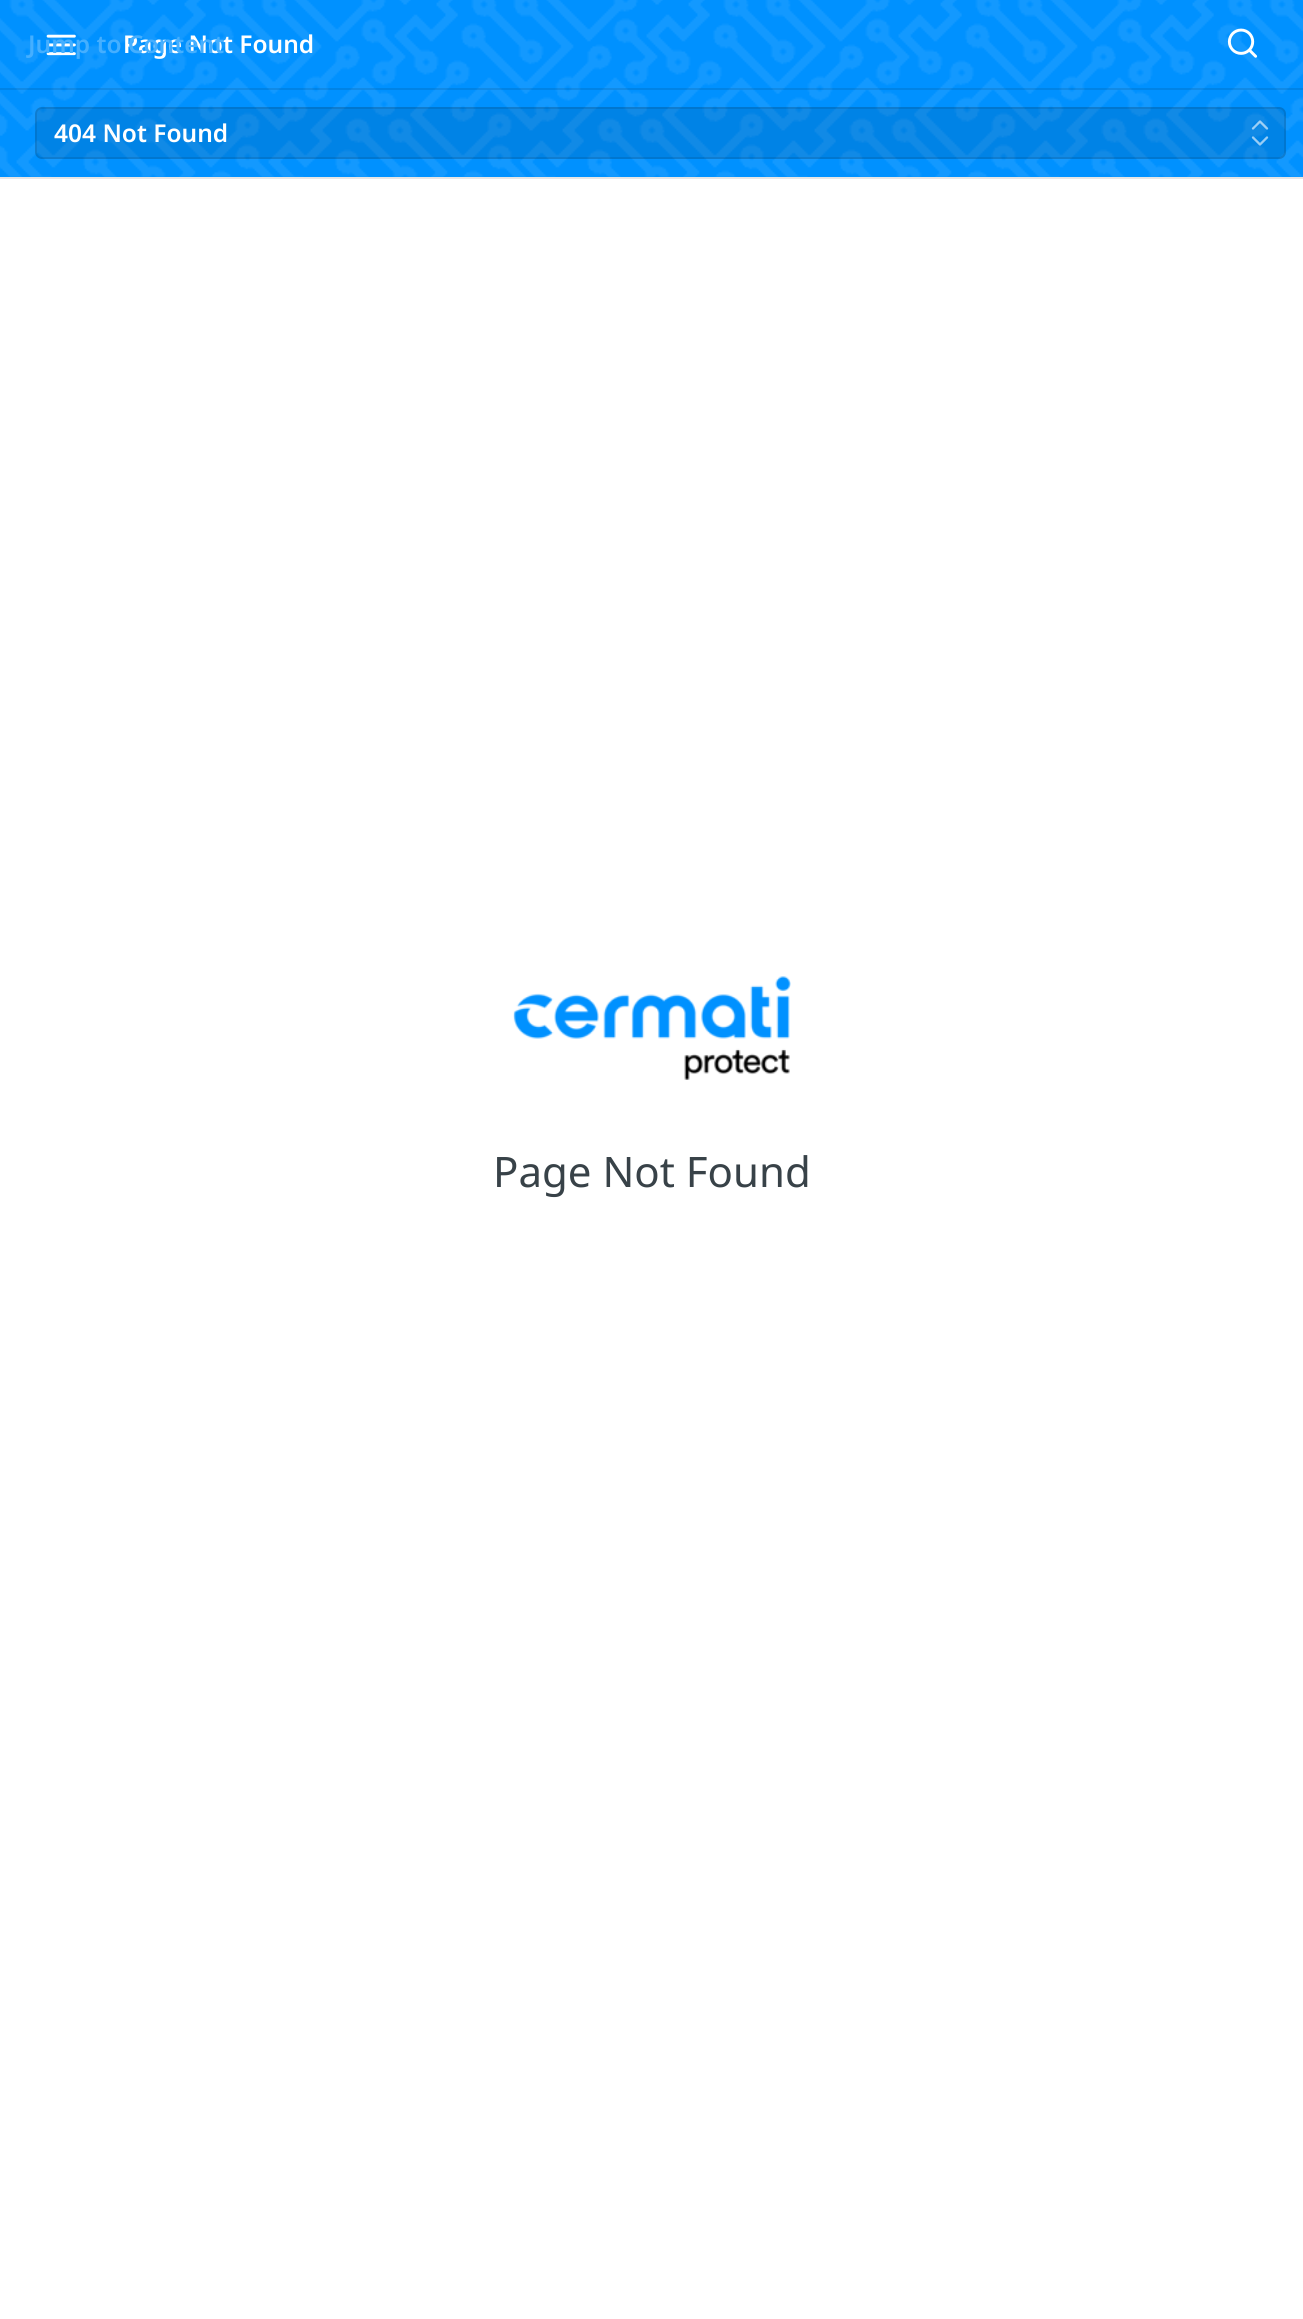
#include <cairo/cairo.h>
#include <math.h>
#include <stddef.h>


static void rounded_rect(cairo_t *cr, double x, double y, double w, double h, double r) {
  cairo_new_sub_path(cr);
  cairo_arc(cr, x + w - r, y + h - r, r, 0, M_PI / 2);
  cairo_arc(cr, x + r, y + h - r, r, M_PI / 2, M_PI);
  cairo_arc(cr, x + r, y + r, r, M_PI, 1.5 * M_PI);
  cairo_arc(cr, x + w - r, y + r, r, 1.5 * M_PI, 2 * M_PI);
  cairo_close_path(cr);
}

static void draw_image(cairo_t *cr, const char *path, double x, double y, double w, double h) {
  cairo_surface_t *image = cairo_image_surface_create_from_png(path);
  cairo_save(cr);
  cairo_set_source_surface(cr, image, x, y);
  cairo_rectangle(cr, x, y, w, h);
  cairo_fill(cr);
  cairo_restore(cr);
  cairo_surface_destroy(image);
}

static void draw(cairo_t *cr) {
  cairo_set_source_rgb(cr, 1, 1, 1);
  cairo_paint(cr);
  cairo_set_source_rgb(cr, 230 / 255.0, 230 / 255.0, 230 / 255.0);
  cairo_new_path(cr);
  cairo_move_to(cr, 0, 177);
  cairo_line_to(cr, 0, 179);
  cairo_line_to(cr, 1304, 179);
  cairo_line_to(cr, 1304, 2);
  cairo_line_to(cr, 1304, 177);
  cairo_close_path(cr);
  cairo_fill(cr);
  cairo_set_source_rgb(cr, 0, 145 / 255.0, 1);
  cairo_rectangle(cr, 0, 0, 1303, 177);
  cairo_fill(cr);
  draw_image(cr, "images/1.png", 0, 0, 1303, 177);
  cairo_set_source_rgba(cr, 0, 0, 0, 0.1);
  cairo_rectangle(cr, 0, 88, 1303, 2);
  cairo_fill(cr);
  draw_image(cr, "images/2.png", 46, 34, 30, 22);
  draw_image(cr, "images/3.png", 1227, 28, 31, 30);
  rounded_rect(cr, 35, 107, 1251, 52, 7);
  cairo_fill(cr);
  rounded_rect(cr, 36, 108, 1249, 50, 6);
  cairo_stroke(cr);
  cairo_new_path(cr);
  cairo_move_to(cr, 1253, 137.5);
  cairo_line_to(cr, 1260, 144.5);
  cairo_line_to(cr, 1267, 137.5);
  cairo_move_to(cr, 1267, 128.5);
  cairo_line_to(cr, 1260, 121.5);
  cairo_line_to(cr, 1253, 128.5);
  cairo_set_source_rgba(cr, 1, 1, 1, 0.6);
  cairo_set_line_width(cr, 2.3);
  cairo_set_line_cap(cr, CAIRO_LINE_CAP_ROUND);
  cairo_set_line_join(cr, CAIRO_LINE_JOIN_ROUND);
  cairo_stroke(cr);
  draw_image(cr, "images/4.png", 513, 976, 278, 104);
  cairo_select_font_face(cr, "Noto Sans SemiBold", CAIRO_FONT_SLANT_NORMAL, CAIRO_FONT_WEIGHT_NORMAL);
  cairo_set_font_size(cr, 24.5);
  cairo_set_source_rgb(cr, 1, 1, 1);
  cairo_move_to(cr, 123, 53);
  cairo_show_text(cr, "Page Not Found");
  cairo_set_source_rgb(cr, 69 / 255.0, 175 / 255.0, 1);
  cairo_move_to(cr, 28, 53);
  cairo_show_text(cr, "Jump to Content");
  cairo_set_source_rgb(cr, 1, 1, 1);
  cairo_move_to(cr, 54, 142);
  cairo_show_text(cr, "404 Not Found");
  cairo_select_font_face(cr, "Noto Sans", CAIRO_FONT_SLANT_NORMAL, CAIRO_FONT_WEIGHT_NORMAL);
  cairo_set_font_size(cr, 42);
  cairo_set_source_rgb(cr, 56 / 255.0, 66 / 255.0, 72 / 255.0);
  cairo_move_to(cr, 493, 1187);
  cairo_show_text(cr, "Page Not Found");
}

int main(void) {
  cairo_surface_t *surface = cairo_image_surface_create(CAIRO_FORMAT_RGB24, 1303, 2319);
  cairo_t *cr = cairo_create(surface);
  cairo_font_options_t *options = cairo_font_options_create();
  cairo_font_options_set_hint_metrics(options, CAIRO_HINT_METRICS_OFF);
  cairo_font_options_set_hint_style(options, CAIRO_HINT_STYLE_NONE);
  cairo_set_font_options(cr, options);
  cairo_set_miter_limit(cr, 4);
  draw(cr);
  cairo_surface_write_to_png(surface, "out.png");
  cairo_font_options_destroy(options);
  cairo_destroy(cr);
  cairo_surface_destroy(surface);
  return 0;
}
